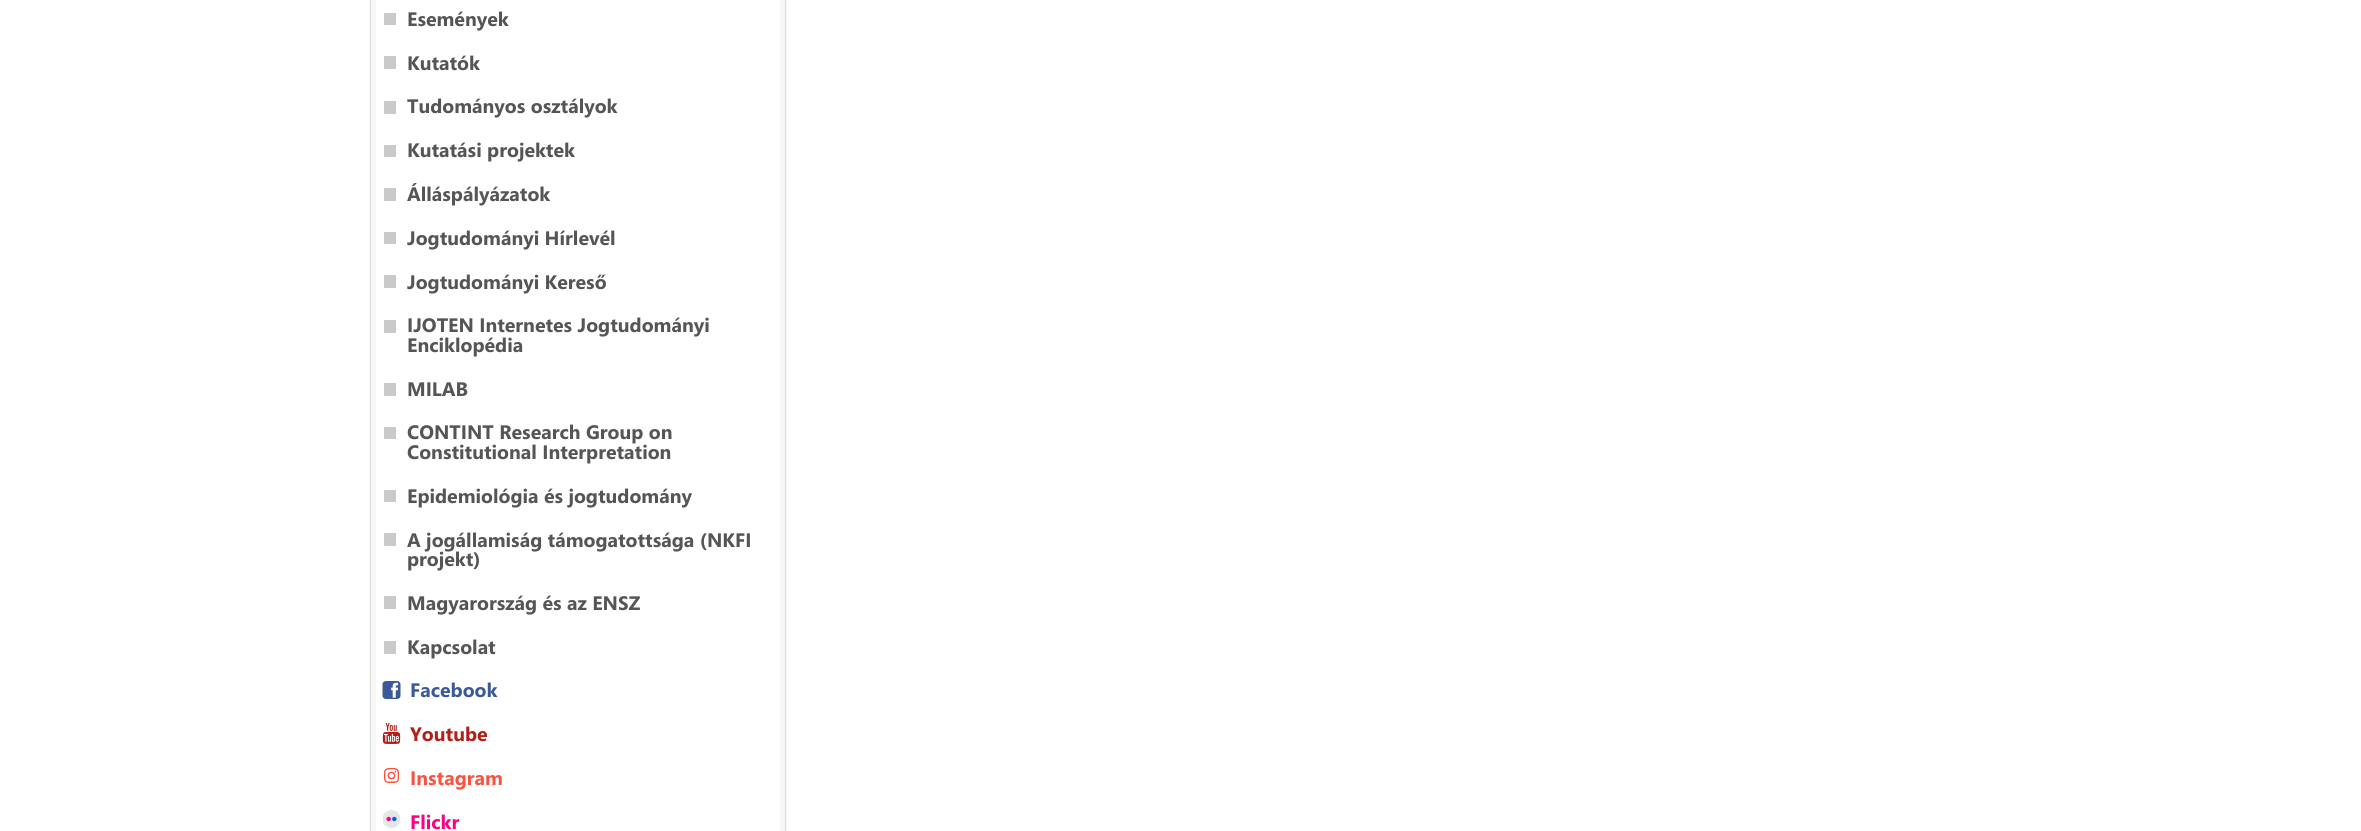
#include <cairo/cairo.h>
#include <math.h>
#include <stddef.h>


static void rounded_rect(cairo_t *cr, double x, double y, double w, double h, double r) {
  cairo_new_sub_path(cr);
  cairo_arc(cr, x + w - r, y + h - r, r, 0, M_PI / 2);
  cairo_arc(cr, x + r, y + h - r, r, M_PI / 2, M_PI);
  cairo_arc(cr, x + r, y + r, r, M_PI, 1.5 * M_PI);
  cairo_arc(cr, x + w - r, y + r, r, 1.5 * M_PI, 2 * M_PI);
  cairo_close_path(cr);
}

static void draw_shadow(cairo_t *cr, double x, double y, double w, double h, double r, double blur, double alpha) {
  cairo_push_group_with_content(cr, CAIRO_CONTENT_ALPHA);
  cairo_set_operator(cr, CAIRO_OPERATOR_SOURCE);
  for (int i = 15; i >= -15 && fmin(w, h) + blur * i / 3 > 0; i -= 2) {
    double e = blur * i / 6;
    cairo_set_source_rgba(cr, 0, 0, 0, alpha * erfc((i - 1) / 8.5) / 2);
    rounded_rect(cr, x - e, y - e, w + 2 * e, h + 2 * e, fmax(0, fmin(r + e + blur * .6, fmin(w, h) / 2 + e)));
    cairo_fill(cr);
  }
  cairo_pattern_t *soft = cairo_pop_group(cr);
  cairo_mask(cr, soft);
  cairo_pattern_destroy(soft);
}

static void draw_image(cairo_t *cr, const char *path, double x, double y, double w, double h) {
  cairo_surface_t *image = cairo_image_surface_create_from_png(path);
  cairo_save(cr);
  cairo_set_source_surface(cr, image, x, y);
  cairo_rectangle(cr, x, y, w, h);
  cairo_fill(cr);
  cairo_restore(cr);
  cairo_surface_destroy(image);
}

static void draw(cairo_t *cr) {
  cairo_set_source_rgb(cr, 1, 1, 1);
  cairo_paint(cr);
  cairo_set_source_rgb(cr, 153 / 255.0, 153 / 255.0, 153 / 255.0);
  draw_shadow(cr, 371, -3, 414, 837, 0, 1, 1);
  cairo_set_source_rgb(cr, 1, 1, 1);
  cairo_rectangle(cr, 373.5, -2.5, 409, 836);
  cairo_fill_preserve(cr);
  cairo_set_source_rgb(cr, 247 / 255.0, 247 / 255.0, 247 / 255.0);
  cairo_set_line_width(cr, 5);
  cairo_stroke(cr);
  cairo_set_source_rgb(cr, 202 / 255.0, 202 / 255.0, 202 / 255.0);
  cairo_rectangle(cr, 384, 13, 12, 12);
  cairo_fill(cr);
  cairo_rectangle(cr, 384, 56, 12, 13);
  cairo_fill(cr);
  cairo_rectangle(cr, 384, 101, 12, 13);
  cairo_fill(cr);
  cairo_rectangle(cr, 384, 145, 12, 12);
  cairo_fill(cr);
  cairo_rectangle(cr, 384, 188, 12, 13);
  cairo_fill(cr);
  cairo_rectangle(cr, 384, 232, 12, 12);
  cairo_fill(cr);
  cairo_rectangle(cr, 384, 275, 12, 13);
  cairo_fill(cr);
  cairo_rectangle(cr, 384, 320, 12, 13);
  cairo_fill(cr);
  cairo_rectangle(cr, 384, 383, 12, 13);
  cairo_fill(cr);
  cairo_rectangle(cr, 384, 427, 12, 12);
  cairo_fill(cr);
  cairo_rectangle(cr, 384, 490, 12, 12);
  cairo_fill(cr);
  cairo_rectangle(cr, 384, 533, 12, 13);
  cairo_fill(cr);
  cairo_rectangle(cr, 384, 596, 12, 13);
  cairo_fill(cr);
  cairo_rectangle(cr, 384, 641, 12, 13);
  cairo_fill(cr);
  draw_image(cr, "images/1.png", 382, 681, 19, 18);
  draw_image(cr, "images/2.png", 382, 723, 19, 21);
  draw_image(cr, "images/3.png", 384, 768, 15, 15);
  draw_image(cr, "images/4.png", 383, 810, 18, 18);
  cairo_select_font_face(cr, "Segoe", CAIRO_FONT_SLANT_NORMAL, CAIRO_FONT_WEIGHT_BOLD);
  cairo_set_font_size(cr, 19.5);
  cairo_set_source_rgb(cr, 85 / 255.0, 85 / 255.0, 85 / 255.0);
  cairo_move_to(cr, 407, 26);
  cairo_show_text(cr, "Események");
  cairo_move_to(cr, 407, 70);
  cairo_show_text(cr, "Kutatók");
  cairo_move_to(cr, 407, 113);
  cairo_show_text(cr, "Tudományos osztályok");
  cairo_move_to(cr, 407, 157);
  cairo_show_text(cr, "Kutatási projektek");
  cairo_move_to(cr, 407, 201);
  cairo_show_text(cr, "Álláspályázatok");
  cairo_move_to(cr, 407, 245);
  cairo_show_text(cr, "Jogtudományi Hírlevél");
  cairo_move_to(cr, 407, 289);
  cairo_show_text(cr, "Jogtudományi Kereső");
  cairo_move_to(cr, 407, 332);
  cairo_show_text(cr, "IJOTEN Internetes Jogtudományi");
  cairo_move_to(cr, 407, 352);
  cairo_show_text(cr, "Enciklopédia");
  cairo_move_to(cr, 407, 396);
  cairo_show_text(cr, "MILAB");
  cairo_move_to(cr, 407, 439);
  cairo_show_text(cr, "CONTINT Research Group on");
  cairo_move_to(cr, 407, 459);
  cairo_show_text(cr, "Constitutional Interpretation");
  cairo_move_to(cr, 407, 503);
  cairo_show_text(cr, "Epidemiológia és jogtudomány");
  cairo_move_to(cr, 407, 547);
  cairo_show_text(cr, "A jogállamiság támogatottsága (NKFI");
  cairo_move_to(cr, 407, 566);
  cairo_show_text(cr, "projekt)");
  cairo_move_to(cr, 407, 610);
  cairo_show_text(cr, "Magyarország és az ENSZ");
  cairo_move_to(cr, 407, 654);
  cairo_show_text(cr, "Kapcsolat");
  cairo_set_source_rgb(cr, 59 / 255.0, 89 / 255.0, 152 / 255.0);
  cairo_move_to(cr, 410, 697);
  cairo_show_text(cr, "Facebook");
  cairo_set_source_rgb(cr, 178 / 255.0, 30 / 255.0, 24 / 255.0);
  cairo_move_to(cr, 410, 741);
  cairo_show_text(cr, "Youtube");
  cairo_set_source_rgb(cr, 251 / 255.0, 83 / 255.0, 64 / 255.0);
  cairo_move_to(cr, 410, 785);
  cairo_show_text(cr, "Instagram");
  cairo_set_source_rgb(cr, 1, 0, 132 / 255.0);
  cairo_move_to(cr, 410, 829);
  cairo_show_text(cr, "Flickr");
}

int main(void) {
  cairo_surface_t *surface = cairo_image_surface_create(CAIRO_FORMAT_RGB24, 2361, 831);
  cairo_t *cr = cairo_create(surface);
  cairo_font_options_t *options = cairo_font_options_create();
  cairo_font_options_set_hint_metrics(options, CAIRO_HINT_METRICS_OFF);
  cairo_font_options_set_hint_style(options, CAIRO_HINT_STYLE_NONE);
  cairo_set_font_options(cr, options);
  cairo_set_miter_limit(cr, 4);
  draw(cr);
  cairo_surface_write_to_png(surface, "out.png");
  cairo_font_options_destroy(options);
  cairo_destroy(cr);
  cairo_surface_destroy(surface);
  return 0;
}
